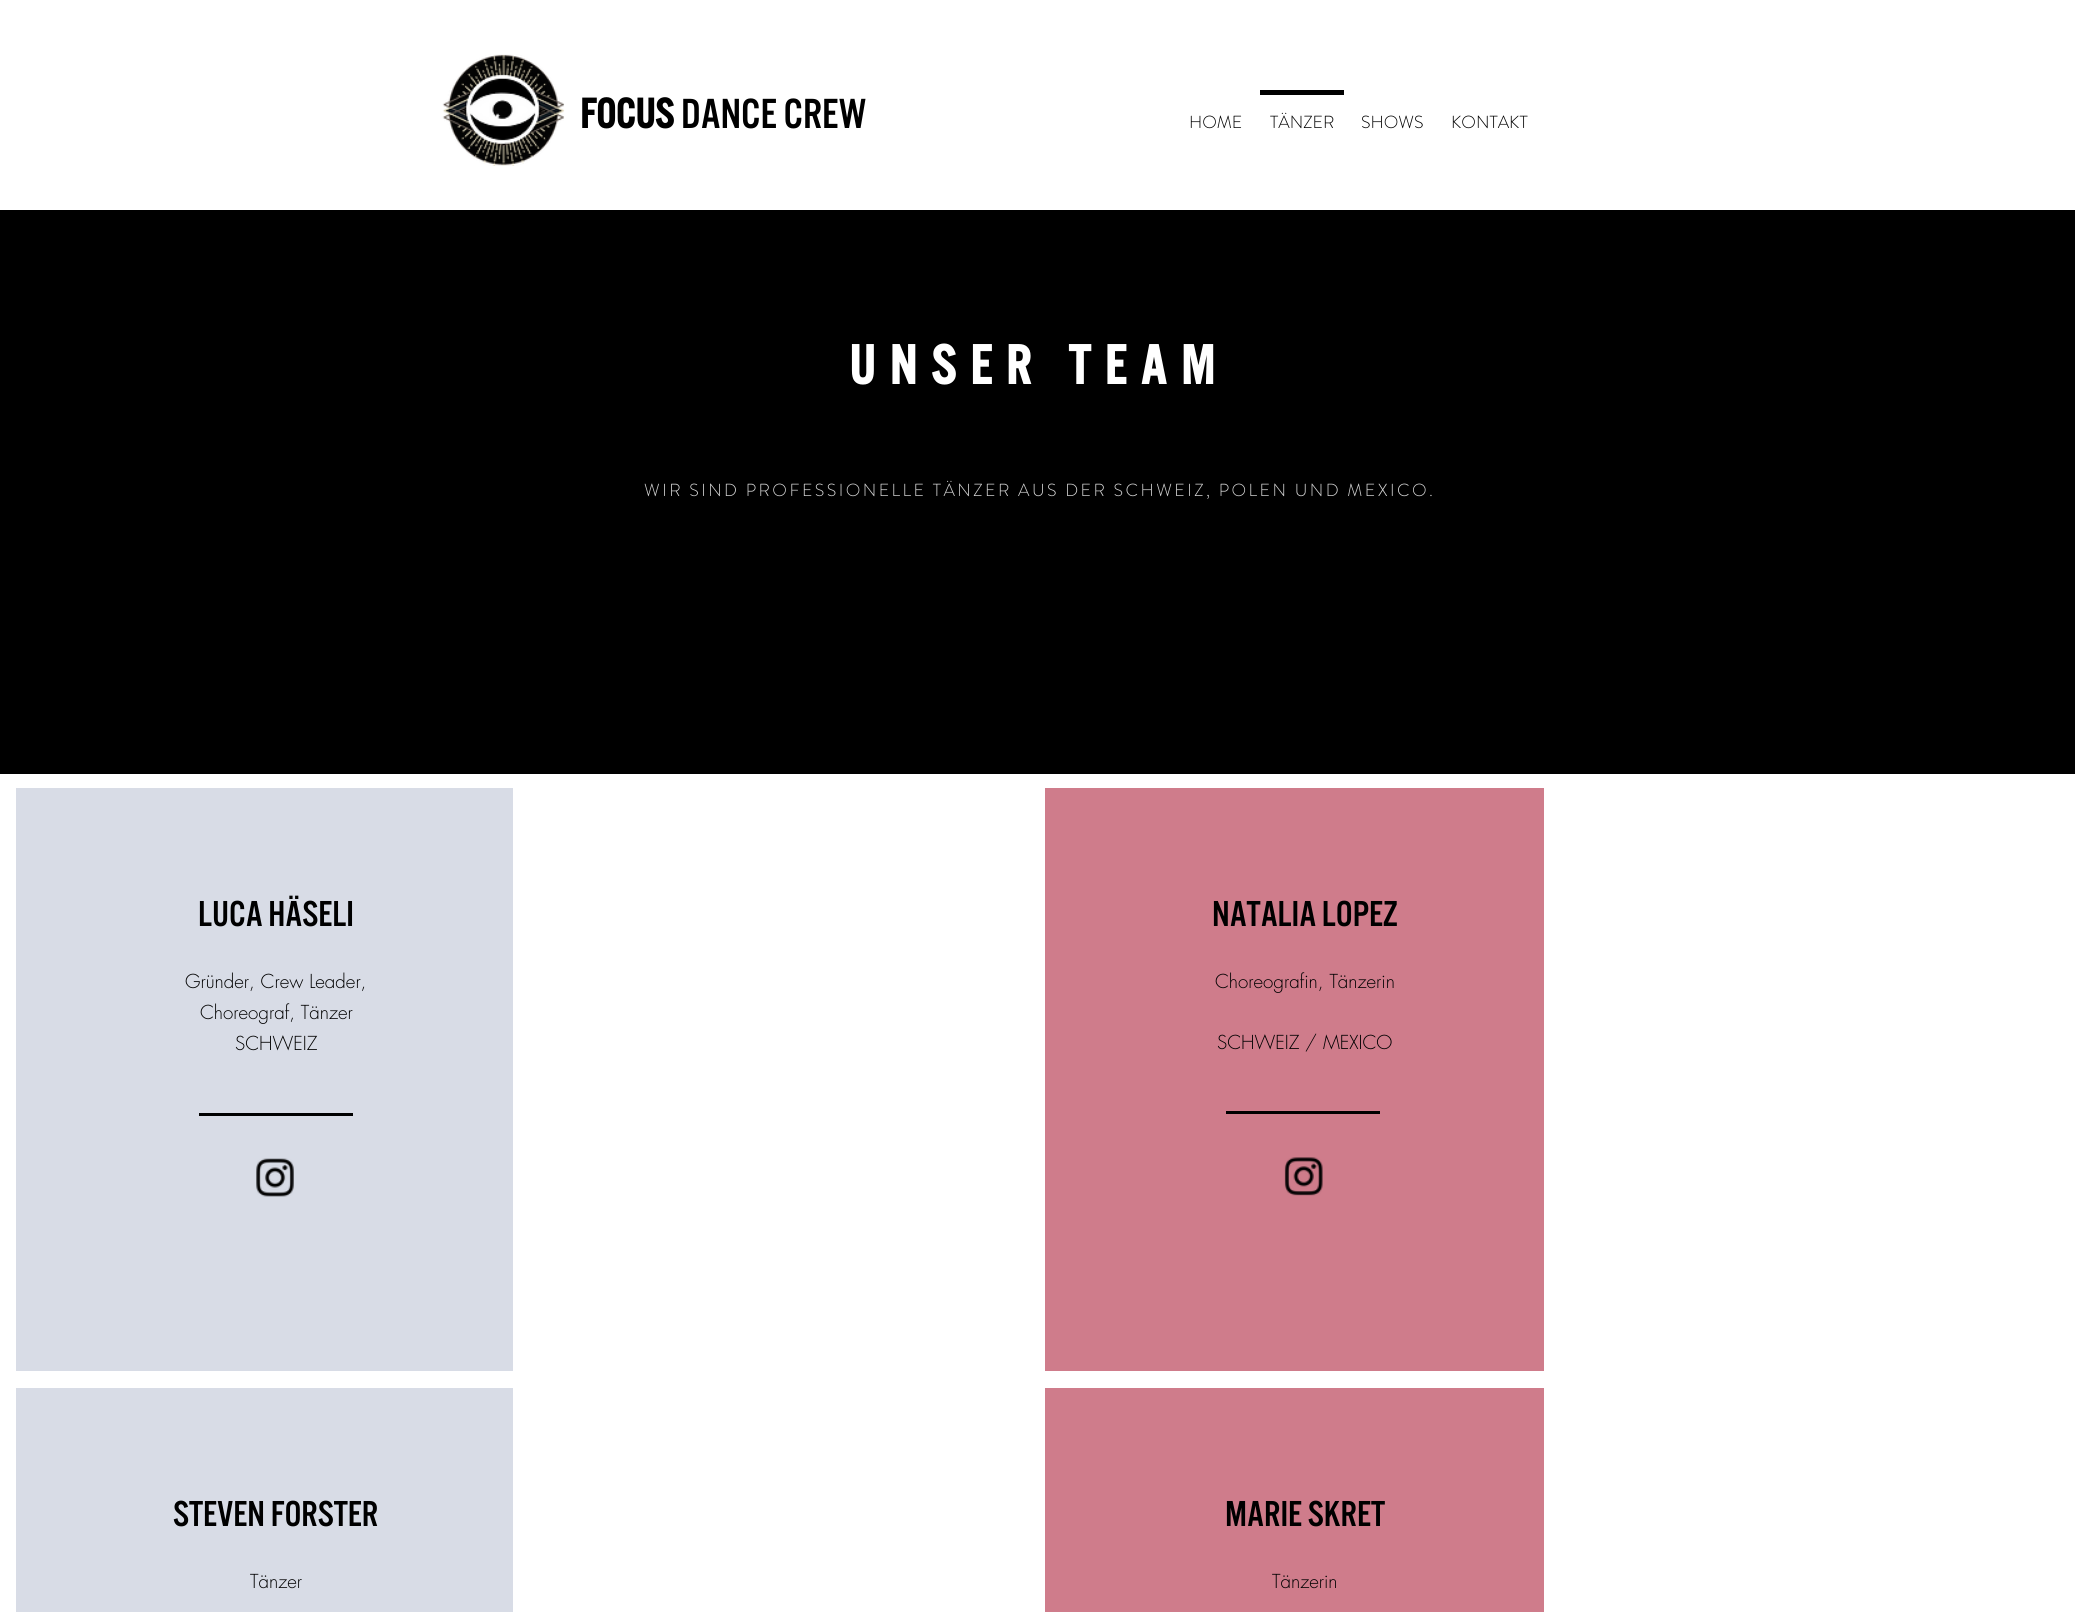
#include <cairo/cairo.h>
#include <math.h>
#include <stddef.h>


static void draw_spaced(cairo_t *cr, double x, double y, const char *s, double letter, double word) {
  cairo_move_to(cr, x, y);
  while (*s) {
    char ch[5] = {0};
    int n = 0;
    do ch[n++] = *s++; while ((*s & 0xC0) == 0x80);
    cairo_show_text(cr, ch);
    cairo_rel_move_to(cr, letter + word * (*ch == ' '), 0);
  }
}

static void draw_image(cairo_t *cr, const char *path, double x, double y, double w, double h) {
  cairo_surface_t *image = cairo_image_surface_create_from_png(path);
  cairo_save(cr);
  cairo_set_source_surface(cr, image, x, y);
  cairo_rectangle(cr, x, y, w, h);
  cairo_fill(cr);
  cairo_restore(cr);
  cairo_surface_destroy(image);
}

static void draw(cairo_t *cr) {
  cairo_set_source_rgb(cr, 1, 1, 1);
  cairo_paint(cr);
  draw_image(cr, "images/1.png", 442, 54, 123, 112);
  cairo_set_source_rgb(cr, 0, 0, 0);
  cairo_rectangle(cr, 1260, 90, 84, 5);
  cairo_fill(cr);
  cairo_rectangle(cr, 0, 210, 2075, 564);
  cairo_fill(cr);
  cairo_set_source_rgb(cr, 216 / 255.0, 220 / 255.0, 230 / 255.0);
  cairo_rectangle(cr, 16, 788, 497, 583);
  cairo_fill(cr);
  cairo_set_source_rgb(cr, 0, 0, 0);
  cairo_rectangle(cr, 199, 1113, 154, 3);
  cairo_fill(cr);
  draw_image(cr, "images/2.png", 256, 1158, 38, 39);
  cairo_set_source_rgb(cr, 207 / 255.0, 124 / 255.0, 139 / 255.0);
  cairo_rectangle(cr, 1045, 788, 499, 583);
  cairo_fill(cr);
  cairo_set_source_rgb(cr, 0, 0, 0);
  cairo_rectangle(cr, 1226, 1111, 154, 3);
  cairo_fill(cr);
  draw_image(cr, "images/3.png", 1284, 1157, 39, 39);
  cairo_set_source_rgb(cr, 216 / 255.0, 220 / 255.0, 230 / 255.0);
  cairo_rectangle(cr, 16, 1388, 497, 224);
  cairo_fill(cr);
  cairo_set_source_rgb(cr, 207 / 255.0, 124 / 255.0, 139 / 255.0);
  cairo_rectangle(cr, 1045, 1388, 499, 224);
  cairo_fill(cr);
  cairo_select_font_face(cr, "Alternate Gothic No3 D", CAIRO_FONT_SLANT_NORMAL, CAIRO_FONT_WEIGHT_BOLD);
  cairo_set_font_size(cr, 43.75);
  cairo_set_source_rgb(cr, 0, 0, 0);
  cairo_move_to(cr, 580, 128);
  cairo_show_text(cr, "FOCUS");
  cairo_select_font_face(cr, "Alternate Gothic No3 D Medium", CAIRO_FONT_SLANT_NORMAL, CAIRO_FONT_WEIGHT_NORMAL);
  cairo_move_to(cr, 681, 128);
  cairo_show_text(cr, "DANCE CREW");
  cairo_select_font_face(cr, "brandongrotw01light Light", CAIRO_FONT_SLANT_NORMAL, CAIRO_FONT_WEIGHT_NORMAL);
  cairo_set_font_size(cr, 17.5);
  cairo_move_to(cr, 1189, 128);
  cairo_show_text(cr, "HOME");
  cairo_move_to(cr, 1270, 128);
  cairo_show_text(cr, "TÄNZER");
  cairo_move_to(cr, 1361, 128);
  cairo_show_text(cr, "SHOWS");
  cairo_move_to(cr, 1451, 128);
  cairo_show_text(cr, "KONTAKT");
  cairo_select_font_face(cr, "Alternate Gothic No3 D", CAIRO_FONT_SLANT_NORMAL, CAIRO_FONT_WEIGHT_BOLD);
  cairo_set_font_size(cr, 57.5);
  cairo_set_source_rgb(cr, 1, 1, 1);
  draw_spaced(cr, 849, 384, "UNSER TEAM", 14.4, 0);
  cairo_select_font_face(cr, "brandongrotw01light Light", CAIRO_FONT_SLANT_NORMAL, CAIRO_FONT_WEIGHT_NORMAL);
  cairo_set_font_size(cr, 17.5);
  cairo_set_source_rgb(cr, 212 / 255.0, 212 / 255.0, 212 / 255.0);
  draw_spaced(cr, 644, 496, "WIR SIND PROFESSIONELLE TÄNZER AUS DER SCHWEIZ, POLEN UND MEXICO.", 2.45, 0);
  cairo_select_font_face(cr, "Alternate Gothic No3 D Medium", CAIRO_FONT_SLANT_NORMAL, CAIRO_FONT_WEIGHT_NORMAL);
  cairo_set_font_size(cr, 37.5);
  cairo_set_source_rgb(cr, 0, 0, 0);
  cairo_move_to(cr, 198, 926);
  cairo_show_text(cr, "LUCA HÄSELI");
  cairo_select_font_face(cr, "futura Light", CAIRO_FONT_SLANT_NORMAL, CAIRO_FONT_WEIGHT_NORMAL);
  cairo_set_font_size(cr, 18.75);
  cairo_move_to(cr, 185, 988);
  cairo_show_text(cr, "Gründer, Crew Leader,");
  cairo_move_to(cr, 200, 1019);
  cairo_show_text(cr, "Choreograf, Tänzer");
  cairo_move_to(cr, 235, 1050);
  cairo_show_text(cr, "SCHWEIZ");
  cairo_select_font_face(cr, "Alternate Gothic No3 D Medium", CAIRO_FONT_SLANT_NORMAL, CAIRO_FONT_WEIGHT_NORMAL);
  cairo_set_font_size(cr, 37.5);
  cairo_move_to(cr, 1212, 926);
  cairo_show_text(cr, "NATALIA LOPEZ");
  cairo_select_font_face(cr, "futura Light", CAIRO_FONT_SLANT_NORMAL, CAIRO_FONT_WEIGHT_NORMAL);
  cairo_set_font_size(cr, 18.75);
  cairo_move_to(cr, 1215, 988);
  cairo_show_text(cr, "Choreografin, Tänzerin");
  cairo_move_to(cr, 1217, 1049);
  cairo_show_text(cr, "SCHWEIZ / MEXICO");
  cairo_select_font_face(cr, "Alternate Gothic No3 D Medium", CAIRO_FONT_SLANT_NORMAL, CAIRO_FONT_WEIGHT_NORMAL);
  cairo_set_font_size(cr, 37.5);
  cairo_move_to(cr, 173, 1526);
  cairo_show_text(cr, "STEVEN FORSTER");
  cairo_select_font_face(cr, "futura Light", CAIRO_FONT_SLANT_NORMAL, CAIRO_FONT_WEIGHT_NORMAL);
  cairo_set_font_size(cr, 18.75);
  cairo_move_to(cr, 250, 1588);
  cairo_show_text(cr, "Tänzer");
  cairo_select_font_face(cr, "Alternate Gothic No3 D Medium", CAIRO_FONT_SLANT_NORMAL, CAIRO_FONT_WEIGHT_NORMAL);
  cairo_set_font_size(cr, 37.5);
  cairo_move_to(cr, 1225, 1526);
  cairo_show_text(cr, "MARIE SKRET");
  cairo_select_font_face(cr, "futura Light", CAIRO_FONT_SLANT_NORMAL, CAIRO_FONT_WEIGHT_NORMAL);
  cairo_set_font_size(cr, 18.75);
  cairo_move_to(cr, 1272, 1588);
  cairo_show_text(cr, "Tänzerin");
}

int main(void) {
  cairo_surface_t *surface = cairo_image_surface_create(CAIRO_FORMAT_RGB24, 2075, 1612);
  cairo_t *cr = cairo_create(surface);
  cairo_font_options_t *options = cairo_font_options_create();
  cairo_font_options_set_hint_metrics(options, CAIRO_HINT_METRICS_OFF);
  cairo_font_options_set_hint_style(options, CAIRO_HINT_STYLE_NONE);
  cairo_set_font_options(cr, options);
  cairo_set_miter_limit(cr, 4);
  draw(cr);
  cairo_surface_write_to_png(surface, "out.png");
  cairo_font_options_destroy(options);
  cairo_destroy(cr);
  cairo_surface_destroy(surface);
  return 0;
}
